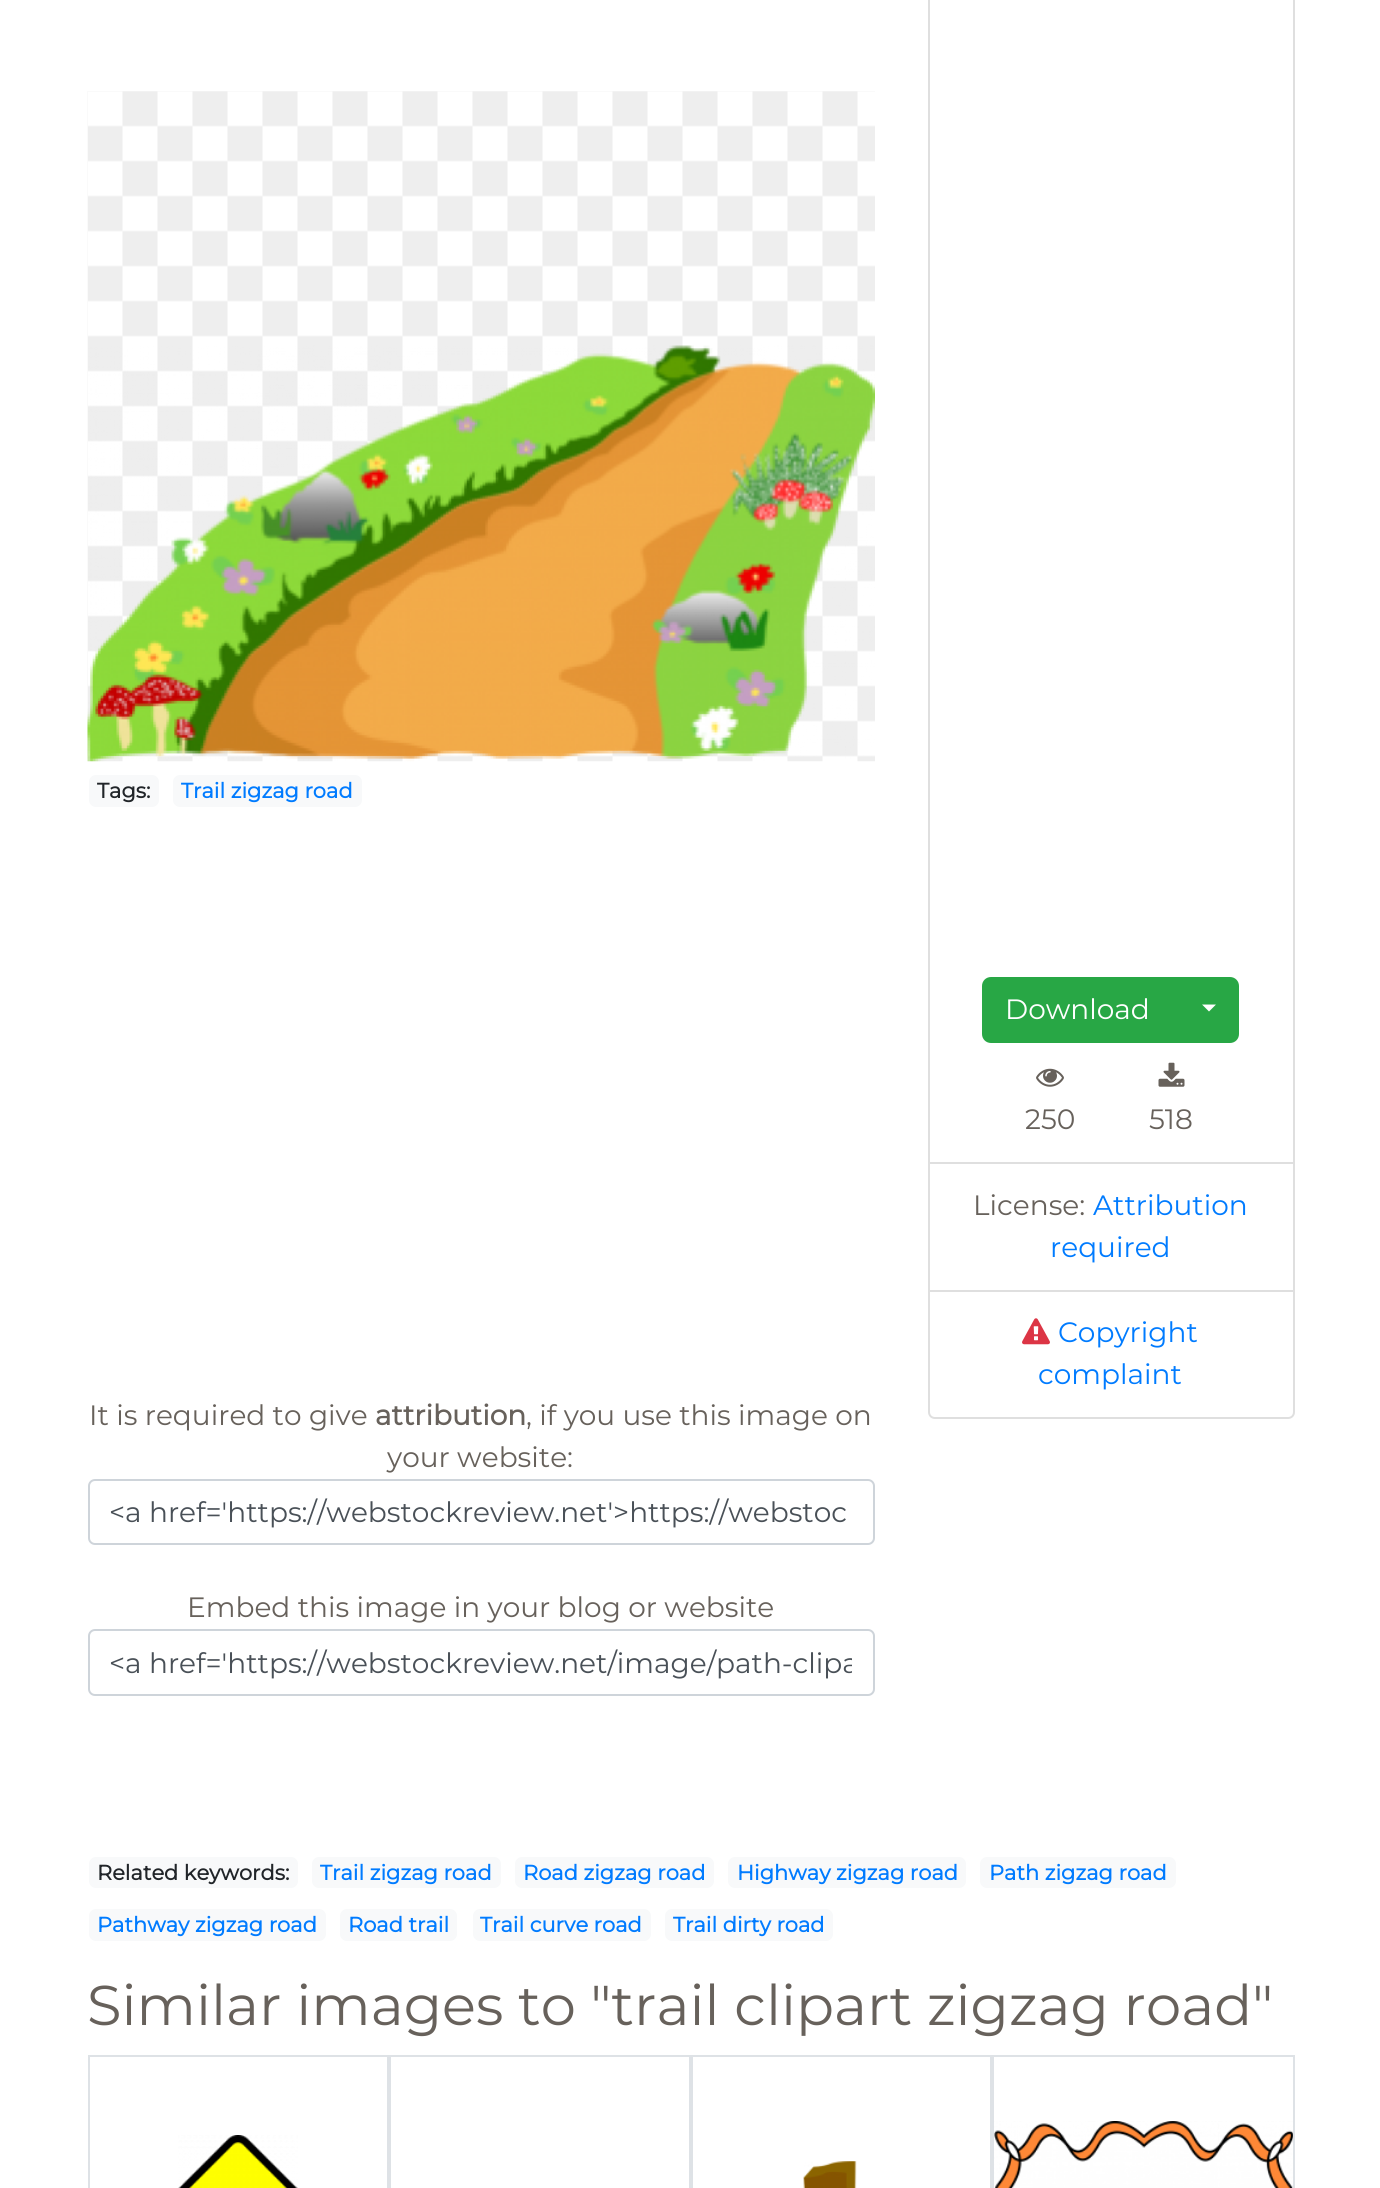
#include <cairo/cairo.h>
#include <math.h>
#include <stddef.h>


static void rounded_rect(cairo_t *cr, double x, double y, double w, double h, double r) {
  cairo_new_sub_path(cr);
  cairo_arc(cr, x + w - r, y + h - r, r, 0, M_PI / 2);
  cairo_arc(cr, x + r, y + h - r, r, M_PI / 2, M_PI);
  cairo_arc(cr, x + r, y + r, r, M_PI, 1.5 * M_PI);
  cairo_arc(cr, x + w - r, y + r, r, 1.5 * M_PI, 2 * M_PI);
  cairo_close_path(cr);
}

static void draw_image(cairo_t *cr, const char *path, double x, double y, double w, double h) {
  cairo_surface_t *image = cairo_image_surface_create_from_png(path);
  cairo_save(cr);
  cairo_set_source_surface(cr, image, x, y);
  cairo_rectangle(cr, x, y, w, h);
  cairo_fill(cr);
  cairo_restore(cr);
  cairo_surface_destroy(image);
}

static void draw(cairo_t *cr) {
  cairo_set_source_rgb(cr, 1, 1, 1);
  cairo_paint(cr);
  draw_image(cr, "images/1.png", 87, 91, 788, 671);
  draw_image(cr, "images/2.png", 87, 345, 788, 417);
  cairo_set_source_rgb(cr, 248 / 255.0, 249 / 255.0, 250 / 255.0);
  rounded_rect(cr, 89, 775, 70, 32, 7);
  cairo_fill(cr);
  rounded_rect(cr, 173, 775, 189, 32, 7);
  cairo_fill(cr);
  rounded_rect(cr, 89, 1480, 785, 64, 6);
  cairo_set_source_rgb(cr, 206 / 255.0, 212 / 255.0, 218 / 255.0);
  cairo_stroke(cr);
  rounded_rect(cr, 89, 1630, 785, 65, 6);
  cairo_stroke(cr);
  cairo_rectangle(cr, 929, -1, 365, 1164);
  cairo_set_source_rgb(cr, 223 / 255.0, 223 / 255.0, 223 / 255.0);
  cairo_stroke(cr);
  cairo_set_source_rgb(cr, 40 / 255.0, 167 / 255.0, 69 / 255.0);
  cairo_new_path(cr);
  cairo_move_to(cr, 991, 978);
  cairo_line_to(cr, 1172, 978);
  cairo_line_to(cr, 1172, 1042);
  cairo_line_to(cr, 991, 1042);
  cairo_curve_to(cr, 986.5, 1042, 983, 1038.5, 983, 1034);
  cairo_line_to(cr, 983, 986);
  cairo_curve_to(cr, 983, 981.5, 986.5, 978, 991, 978);
  cairo_close_path(cr);
  cairo_fill_preserve(cr);
  cairo_stroke(cr);
  cairo_new_path(cr);
  cairo_move_to(cr, 1172, 978);
  cairo_line_to(cr, 1230, 978);
  cairo_curve_to(cr, 1234.5, 978, 1238, 981.5, 1238, 986);
  cairo_line_to(cr, 1238, 1034);
  cairo_curve_to(cr, 1238, 1038.5, 1234.5, 1042, 1230, 1042);
  cairo_line_to(cr, 1172, 1042);
  cairo_close_path(cr);
  cairo_fill_preserve(cr);
  cairo_stroke(cr);
  cairo_set_source_rgb(cr, 1, 1, 1);
  cairo_new_path(cr);
  cairo_move_to(cr, 1202, 1004.5);
  cairo_line_to(cr, 1216, 1004.5);
  cairo_line_to(cr, 1209, 1011.5);
  cairo_close_path(cr);
  cairo_fill(cr);
  draw_image(cr, "images/3.png", 1036, 1068, 28, 19);
  draw_image(cr, "images/4.png", 1158, 1062, 27, 25);
  cairo_rectangle(cr, 929, 1163, 365, 128);
  cairo_set_source_rgb(cr, 223 / 255.0, 223 / 255.0, 223 / 255.0);
  cairo_stroke(cr);
  cairo_set_source_rgb(cr, 1, 1, 1);
  cairo_new_path(cr);
  cairo_move_to(cr, 929, 1291);
  cairo_line_to(cr, 1294, 1291);
  cairo_line_to(cr, 1294, 1412);
  cairo_curve_to(cr, 1294, 1415.5, 1291.5, 1418, 1288, 1418);
  cairo_line_to(cr, 935, 1418);
  cairo_curve_to(cr, 931.5, 1418, 929, 1415.5, 929, 1412);
  cairo_close_path(cr);
  cairo_fill_preserve(cr);
  cairo_set_source_rgb(cr, 223 / 255.0, 223 / 255.0, 223 / 255.0);
  cairo_stroke(cr);
  draw_image(cr, "images/5.png", 1022, 1318, 28, 27);
  cairo_set_source_rgb(cr, 248 / 255.0, 249 / 255.0, 250 / 255.0);
  rounded_rect(cr, 89, 1857, 209, 31, 7);
  cairo_fill(cr);
  rounded_rect(cr, 312, 1857, 189, 31, 7);
  cairo_fill(cr);
  rounded_rect(cr, 515, 1857, 199, 31, 7);
  cairo_fill(cr);
  rounded_rect(cr, 728, 1857, 238, 31, 7);
  cairo_fill(cr);
  rounded_rect(cr, 980, 1857, 196, 31, 7);
  cairo_fill(cr);
  rounded_rect(cr, 89, 1909, 237, 32, 7);
  cairo_fill(cr);
  rounded_rect(cr, 340, 1909, 117, 32, 7);
  cairo_fill(cr);
  rounded_rect(cr, 473, 1909, 178, 32, 7);
  cairo_fill(cr);
  rounded_rect(cr, 665, 1909, 168, 32, 7);
  cairo_fill(cr);
  draw_image(cr, "images/6.png", 178, 2135, 120, 53);
  cairo_rectangle(cr, 89, 2056, 299, 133);
  cairo_set_source_rgb(cr, 222 / 255.0, 226 / 255.0, 230 / 255.0);
  cairo_stroke(cr);
  cairo_rectangle(cr, 390, 2056, 300, 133);
  cairo_stroke(cr);
  draw_image(cr, "images/7.png", 803, 2161, 54, 27);
  cairo_rectangle(cr, 692, 2056, 299, 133);
  cairo_stroke(cr);
  draw_image(cr, "images/8.png", 994, 2121, 299, 67);
  cairo_rectangle(cr, 993, 2056, 301, 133);
  cairo_stroke(cr);
  cairo_select_font_face(cr, "Montserrat", CAIRO_FONT_SLANT_NORMAL, CAIRO_FONT_WEIGHT_BOLD);
  cairo_set_font_size(cr, 21);
  cairo_set_source_rgb(cr, 33 / 255.0, 37 / 255.0, 41 / 255.0);
  cairo_move_to(cr, 97, 798);
  cairo_show_text(cr, "Tags:");
  cairo_set_source_rgb(cr, 0, 123 / 255.0, 1);
  cairo_move_to(cr, 181, 798);
  cairo_show_text(cr, "Trail zigzag road");
  cairo_select_font_face(cr, "Montserrat Thin", CAIRO_FONT_SLANT_NORMAL, CAIRO_FONT_WEIGHT_NORMAL);
  cairo_set_font_size(cr, 28);
  cairo_set_source_rgb(cr, 103 / 255.0, 97 / 255.0, 91 / 255.0);
  cairo_move_to(cr, 89, 1425);
  cairo_show_text(cr, "It is required to give");
  cairo_select_font_face(cr, "Montserrat", CAIRO_FONT_SLANT_NORMAL, CAIRO_FONT_WEIGHT_BOLD);
  cairo_move_to(cr, 375, 1425);
  cairo_show_text(cr, "attribution");
  cairo_select_font_face(cr, "Montserrat Thin", CAIRO_FONT_SLANT_NORMAL, CAIRO_FONT_WEIGHT_NORMAL);
  cairo_move_to(cr, 526, 1425);
  cairo_show_text(cr, ", if you use this image on");
  cairo_move_to(cr, 387, 1467);
  cairo_show_text(cr, "your website:");
  cairo_set_source_rgb(cr, 73 / 255.0, 80 / 255.0, 87 / 255.0);
  cairo_move_to(cr, 109, 1522);
  cairo_show_text(cr, "<a href='https://webstockreview.net'>https://webstoc");
  cairo_set_source_rgb(cr, 103 / 255.0, 97 / 255.0, 91 / 255.0);
  cairo_move_to(cr, 187, 1617);
  cairo_show_text(cr, "Embed this image in your blog or website");
  cairo_save(cr);
  cairo_rectangle(cr, 110, 1647, 742, 33);
  cairo_clip(cr);
  cairo_set_source_rgb(cr, 73 / 255.0, 80 / 255.0, 87 / 255.0);
  cairo_move_to(cr, 109, 1673);
  cairo_show_text(cr, "<a href='https://webstockreview.net/image/path-clipa");
  cairo_restore(cr);
  cairo_set_source_rgb(cr, 1, 1, 1);
  cairo_move_to(cr, 1005, 1019);
  cairo_show_text(cr, "Download");
  cairo_set_source_rgb(cr, 103 / 255.0, 97 / 255.0, 91 / 255.0);
  cairo_move_to(cr, 1025, 1129);
  cairo_show_text(cr, "250");
  cairo_move_to(cr, 1149, 1129);
  cairo_show_text(cr, "518");
  cairo_move_to(cr, 973, 1215);
  cairo_show_text(cr, "License:");
  cairo_set_source_rgb(cr, 0, 123 / 255.0, 1);
  cairo_move_to(cr, 1093, 1215);
  cairo_show_text(cr, "Attribution");
  cairo_move_to(cr, 1050, 1257);
  cairo_show_text(cr, "required");
  cairo_move_to(cr, 1058, 1342);
  cairo_show_text(cr, "Copyright");
  cairo_move_to(cr, 1038, 1384);
  cairo_show_text(cr, "complaint");
  cairo_select_font_face(cr, "Montserrat", CAIRO_FONT_SLANT_NORMAL, CAIRO_FONT_WEIGHT_BOLD);
  cairo_set_font_size(cr, 21);
  cairo_set_source_rgb(cr, 33 / 255.0, 37 / 255.0, 41 / 255.0);
  cairo_move_to(cr, 97, 1880);
  cairo_show_text(cr, "Related keywords:");
  cairo_set_source_rgb(cr, 0, 123 / 255.0, 1);
  cairo_move_to(cr, 320, 1880);
  cairo_show_text(cr, "Trail zigzag road");
  cairo_move_to(cr, 523, 1880);
  cairo_show_text(cr, "Road zigzag road");
  cairo_move_to(cr, 737, 1880);
  cairo_show_text(cr, "Highway zigzag road");
  cairo_move_to(cr, 989, 1880);
  cairo_show_text(cr, "Path zigzag road");
  cairo_move_to(cr, 97, 1932);
  cairo_show_text(cr, "Pathway zigzag road");
  cairo_move_to(cr, 348, 1932);
  cairo_show_text(cr, "Road trail");
  cairo_move_to(cr, 480, 1932);
  cairo_show_text(cr, "Trail curve road");
  cairo_move_to(cr, 673, 1932);
  cairo_show_text(cr, "Trail dirty road");
  cairo_select_font_face(cr, "Montserrat Thin", CAIRO_FONT_SLANT_NORMAL, CAIRO_FONT_WEIGHT_NORMAL);
  cairo_set_font_size(cr, 56);
  cairo_set_source_rgb(cr, 103 / 255.0, 97 / 255.0, 91 / 255.0);
  cairo_move_to(cr, 87, 2025);
  cairo_show_text(cr, "Similar images to \"trail clipart zigzag road\"");
}

int main(void) {
  cairo_surface_t *surface = cairo_image_surface_create(CAIRO_FORMAT_RGB24, 1380, 2188);
  cairo_t *cr = cairo_create(surface);
  cairo_font_options_t *options = cairo_font_options_create();
  cairo_font_options_set_hint_metrics(options, CAIRO_HINT_METRICS_OFF);
  cairo_font_options_set_hint_style(options, CAIRO_HINT_STYLE_NONE);
  cairo_set_font_options(cr, options);
  cairo_set_miter_limit(cr, 4);
  draw(cr);
  cairo_surface_write_to_png(surface, "out.png");
  cairo_font_options_destroy(options);
  cairo_destroy(cr);
  cairo_surface_destroy(surface);
  return 0;
}
